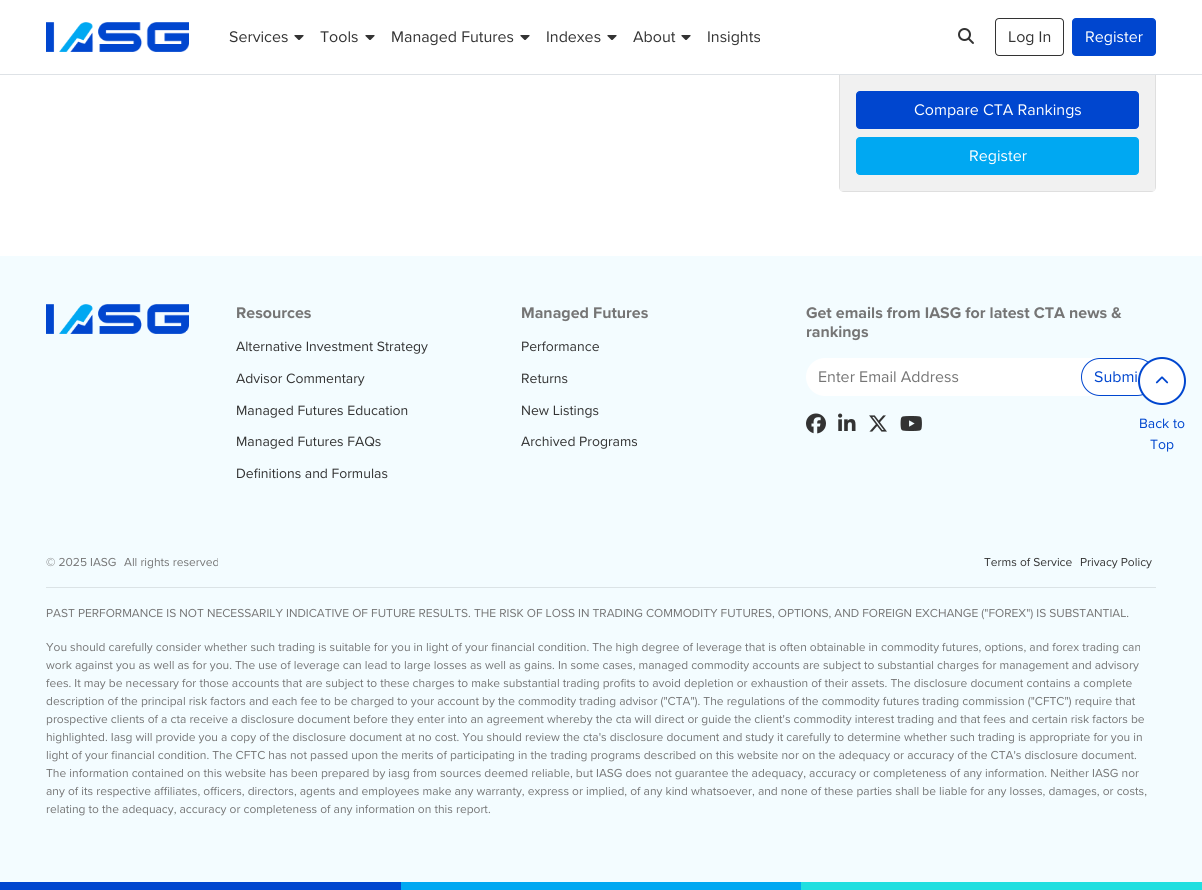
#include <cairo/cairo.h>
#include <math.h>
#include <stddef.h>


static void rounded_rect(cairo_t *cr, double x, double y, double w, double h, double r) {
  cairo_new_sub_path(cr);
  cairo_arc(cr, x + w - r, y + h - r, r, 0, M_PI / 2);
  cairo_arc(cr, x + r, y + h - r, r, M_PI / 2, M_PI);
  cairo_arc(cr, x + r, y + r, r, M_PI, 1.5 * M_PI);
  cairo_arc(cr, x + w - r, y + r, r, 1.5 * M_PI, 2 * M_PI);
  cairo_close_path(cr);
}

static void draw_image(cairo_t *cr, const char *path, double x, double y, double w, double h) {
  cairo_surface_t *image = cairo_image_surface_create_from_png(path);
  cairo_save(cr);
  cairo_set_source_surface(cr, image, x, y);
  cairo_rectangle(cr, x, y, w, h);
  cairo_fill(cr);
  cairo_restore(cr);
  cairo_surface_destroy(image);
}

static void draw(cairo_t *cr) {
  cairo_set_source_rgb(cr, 1, 1, 1);
  cairo_paint(cr);
  rounded_rect(cr, 839.5, -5.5, 316, 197, 4.5);
  cairo_set_source_rgb(cr, 223 / 255.0, 223 / 255.0, 223 / 255.0);
  cairo_set_line_width(cr, 1);
  cairo_stroke(cr);
  cairo_set_source_rgb(cr, 1, 1, 1);
  cairo_rectangle(cr, 839, 0, 317, 74);
  cairo_fill(cr);
  cairo_set_source_rgb(cr, 222 / 255.0, 226 / 255.0, 230 / 255.0);
  cairo_rectangle(cr, 0, 74, 1202, 1);
  cairo_fill(cr);
  draw_image(cr, "images/1.png", 46, 22, 143, 30);
  draw_image(cr, "images/2.png", 294, 35, 10, 5);
  draw_image(cr, "images/2.png", 365, 35, 10, 5);
  draw_image(cr, "images/2.png", 520, 35, 10, 5);
  draw_image(cr, "images/2.png", 607, 35, 10, 5);
  draw_image(cr, "images/2.png", 681, 35, 10, 5);
  draw_image(cr, "images/3.png", 958, 28, 16, 16);
  rounded_rect(cr, 995.5, 18.5, 68, 37, 3.5);
  cairo_set_source_rgb(cr, 51 / 255.0, 51 / 255.0, 51 / 255.0);
  cairo_stroke(cr);
  cairo_set_source_rgb(cr, 0, 70 / 255.0, 207 / 255.0);
  rounded_rect(cr, 1072.5, 18.5, 83, 37, 3.5);
  cairo_fill_preserve(cr);
  cairo_stroke(cr);
  cairo_set_source_rgb(cr, 241 / 255.0, 241 / 255.0, 241 / 255.0);
  cairo_rectangle(cr, 840, 75, 315, 116);
  cairo_fill(cr);
  cairo_set_source_rgb(cr, 0, 70 / 255.0, 207 / 255.0);
  rounded_rect(cr, 856.5, 91.5, 282, 37, 3.5);
  cairo_fill_preserve(cr);
  cairo_stroke(cr);
  cairo_set_source_rgb(cr, 0, 168 / 255.0, 242 / 255.0);
  rounded_rect(cr, 856.5, 137.5, 282, 37, 3.5);
  cairo_fill_preserve(cr);
  cairo_stroke(cr);
  cairo_set_source_rgb(cr, 243 / 255.0, 252 / 255.0, 1);
  cairo_rectangle(cr, 0, 256, 1202, 626);
  cairo_fill(cr);
  draw_image(cr, "images/4.png", 46, 304, 143, 30);
  cairo_set_source_rgb(cr, 1, 1, 1);
  rounded_rect(cr, 806, 358, 309, 38, 19);
  cairo_fill(cr);
  rounded_rect(cr, 1081.5, 358.5, 74, 37, 18.5);
  cairo_fill_preserve(cr);
  cairo_set_source_rgb(cr, 0, 70 / 255.0, 207 / 255.0);
  cairo_stroke(cr);
  draw_image(cr, "images/5.png", 806, 413, 20, 21);
  draw_image(cr, "images/6.png", 838, 413, 18, 18);
  draw_image(cr, "images/7.png", 869, 415, 18, 17);
  draw_image(cr, "images/8.png", 900, 416, 22, 15);
  cairo_set_source_rgb(cr, 219 / 255.0, 227 / 255.0, 230 / 255.0);
  cairo_rectangle(cr, 46, 587, 1110, 1);
  cairo_fill(cr);
  cairo_set_source_rgb(cr, 0, 70 / 255.0, 207 / 255.0);
  cairo_rectangle(cr, 0, 882, 401, 8);
  cairo_fill(cr);
  cairo_set_source_rgb(cr, 0, 168 / 255.0, 242 / 255.0);
  cairo_rectangle(cr, 401, 882, 400, 8);
  cairo_fill(cr);
  cairo_set_source_rgb(cr, 32 / 255.0, 223 / 255.0, 224 / 255.0);
  cairo_rectangle(cr, 801, 882, 401, 8);
  cairo_fill(cr);
  cairo_set_source_rgb(cr, 1, 1, 1);
  cairo_arc(cr, 1162, 381, 23, 0, 2 * M_PI);
  cairo_fill_preserve(cr);
  cairo_set_source_rgb(cr, 0, 70 / 255.0, 207 / 255.0);
  cairo_set_line_width(cr, 2);
  cairo_stroke(cr);
  draw_image(cr, "images/9.png", 1155, 376, 14, 8);
  cairo_select_font_face(cr, "Proxima Nova", CAIRO_FONT_SLANT_NORMAL, CAIRO_FONT_WEIGHT_NORMAL);
  cairo_set_font_size(cr, 16);
  cairo_set_source_rgb(cr, 51 / 255.0, 51 / 255.0, 51 / 255.0);
  cairo_move_to(cr, 229, 42);
  cairo_show_text(cr, "Services");
  cairo_move_to(cr, 320, 42);
  cairo_show_text(cr, "Tools");
  cairo_move_to(cr, 391, 42);
  cairo_show_text(cr, "Managed Futures");
  cairo_move_to(cr, 546, 42);
  cairo_show_text(cr, "Indexes");
  cairo_move_to(cr, 633, 42);
  cairo_show_text(cr, "About");
  cairo_move_to(cr, 707, 42);
  cairo_show_text(cr, "Insights");
  cairo_move_to(cr, 1008, 42);
  cairo_show_text(cr, "Log In");
  cairo_set_source_rgb(cr, 1, 1, 1);
  cairo_move_to(cr, 1085, 42);
  cairo_show_text(cr, "Register");
  cairo_move_to(cr, 914, 115);
  cairo_show_text(cr, "Compare CTA Rankings");
  cairo_move_to(cr, 969, 161);
  cairo_show_text(cr, "Register");
  cairo_select_font_face(cr, "Proxima Nova", CAIRO_FONT_SLANT_NORMAL, CAIRO_FONT_WEIGHT_BOLD);
  cairo_set_source_rgb(cr, 117 / 255.0, 117 / 255.0, 117 / 255.0);
  cairo_move_to(cr, 236, 318);
  cairo_show_text(cr, "Resources");
  cairo_select_font_face(cr, "Proxima Nova", CAIRO_FONT_SLANT_NORMAL, CAIRO_FONT_WEIGHT_NORMAL);
  cairo_set_font_size(cr, 14);
  cairo_set_source_rgb(cr, 51 / 255.0, 51 / 255.0, 51 / 255.0);
  cairo_move_to(cr, 236, 351);
  cairo_show_text(cr, "Alternative Investment Strategy");
  cairo_move_to(cr, 236, 383);
  cairo_show_text(cr, "Advisor Commentary");
  cairo_move_to(cr, 236, 415);
  cairo_show_text(cr, "Managed Futures Education");
  cairo_move_to(cr, 236, 446);
  cairo_show_text(cr, "Managed Futures FAQs");
  cairo_move_to(cr, 236, 478);
  cairo_show_text(cr, "Definitions and Formulas");
  cairo_select_font_face(cr, "Proxima Nova", CAIRO_FONT_SLANT_NORMAL, CAIRO_FONT_WEIGHT_BOLD);
  cairo_set_font_size(cr, 16);
  cairo_set_source_rgb(cr, 117 / 255.0, 117 / 255.0, 117 / 255.0);
  cairo_move_to(cr, 521, 318);
  cairo_show_text(cr, "Managed Futures");
  cairo_select_font_face(cr, "Proxima Nova", CAIRO_FONT_SLANT_NORMAL, CAIRO_FONT_WEIGHT_NORMAL);
  cairo_set_font_size(cr, 14);
  cairo_set_source_rgb(cr, 51 / 255.0, 51 / 255.0, 51 / 255.0);
  cairo_move_to(cr, 521, 351);
  cairo_show_text(cr, "Performance");
  cairo_move_to(cr, 521, 383);
  cairo_show_text(cr, "Returns");
  cairo_move_to(cr, 521, 415);
  cairo_show_text(cr, "New Listings");
  cairo_move_to(cr, 521, 446);
  cairo_show_text(cr, "Archived Programs");
  cairo_select_font_face(cr, "Proxima Nova", CAIRO_FONT_SLANT_NORMAL, CAIRO_FONT_WEIGHT_BOLD);
  cairo_set_font_size(cr, 16);
  cairo_set_source_rgb(cr, 117 / 255.0, 117 / 255.0, 117 / 255.0);
  cairo_move_to(cr, 806, 318);
  cairo_show_text(cr, "Get emails from IASG for latest CTA news &");
  cairo_move_to(cr, 806, 337);
  cairo_show_text(cr, "rankings");
  cairo_select_font_face(cr, "Proxima Nova", CAIRO_FONT_SLANT_NORMAL, CAIRO_FONT_WEIGHT_NORMAL);
  cairo_move_to(cr, 818, 382);
  cairo_show_text(cr, "Enter Email Address");
  cairo_set_source_rgb(cr, 0, 70 / 255.0, 207 / 255.0);
  cairo_move_to(cr, 1094, 382);
  cairo_show_text(cr, "Submi");
  cairo_set_font_size(cr, 12);
  cairo_set_source_rgb(cr, 117 / 255.0, 117 / 255.0, 117 / 255.0);
  cairo_move_to(cr, 46, 566);
  cairo_show_text(cr, "© 2025 IASG");
  cairo_move_to(cr, 124, 566);
  cairo_show_text(cr, "All rights reserved");
  cairo_set_source_rgb(cr, 51 / 255.0, 51 / 255.0, 51 / 255.0);
  cairo_move_to(cr, 984, 566);
  cairo_show_text(cr, "Terms of Service");
  cairo_move_to(cr, 1080, 566);
  cairo_show_text(cr, "Privacy Policy");
  cairo_set_source_rgb(cr, 117 / 255.0, 117 / 255.0, 117 / 255.0);
  cairo_move_to(cr, 46, 617);
  cairo_show_text(cr, "PAST PERFORMANCE IS NOT NECESSARILY INDICATIVE OF FUTURE RESULTS. THE RISK OF LOSS IN TRADING COMMODITY FUTURES, OPTIONS, AND FOREIGN EXCHANGE (\"FOREX\") IS SUBSTANTIAL.");
  cairo_move_to(cr, 46, 651);
  cairo_show_text(cr, "You should carefully consider whether such trading is suitable for you in light of your financial condition. The high degree of leverage that is often obtainable in commodity futures, options, and forex trading can");
  cairo_move_to(cr, 46, 669);
  cairo_show_text(cr, "work against you as well as for you. The use of leverage can lead to large losses as well as gains. In some cases, managed commodity accounts are subject to substantial charges for management and advisory");
  cairo_move_to(cr, 46, 687);
  cairo_show_text(cr, "fees. It may be necessary for those accounts that are subject to these charges to make substantial trading profits to avoid depletion or exhaustion of their assets. The disclosure document contains a complete");
  cairo_move_to(cr, 46, 705);
  cairo_show_text(cr, "description of the principal risk factors and each fee to be charged to your account by the commodity trading advisor (\"CTA\"). The regulations of the commodity futures trading commission (\"CFTC\") require that");
  cairo_move_to(cr, 46, 723);
  cairo_show_text(cr, "prospective clients of a cta receive a disclosure document before they enter into an agreement whereby the cta will direct or guide the client's commodity interest trading and that fees and certain risk factors be");
  cairo_move_to(cr, 46, 741);
  cairo_show_text(cr, "highlighted. Iasg will provide you a copy of the disclosure document at no cost. You should review the cta's disclosure document and study it carefully to determine whether such trading is appropriate for you in");
  cairo_move_to(cr, 46, 759);
  cairo_show_text(cr, "light of your financial condition. The CFTC has not passed upon the merits of participating in the trading programs described on this website nor on the adequacy or accuracy of the CTA's disclosure document.");
  cairo_move_to(cr, 46, 777);
  cairo_show_text(cr, "The information contained on this website has been prepared by iasg from sources deemed reliable, but IASG does not guarantee the adequacy, accuracy or completeness of any information. Neither IASG nor");
  cairo_move_to(cr, 46, 795);
  cairo_show_text(cr, "any of its respective affiliates, officers, directors, agents and employees make any warranty, express or implied, of any kind whatsoever, and none of these parties shall be liable for any losses, damages, or costs,");
  cairo_move_to(cr, 46, 813);
  cairo_show_text(cr, "relating to the adequacy, accuracy or completeness of any information on this report.");
  cairo_set_font_size(cr, 14);
  cairo_set_source_rgb(cr, 0, 70 / 255.0, 207 / 255.0);
  cairo_move_to(cr, 1139, 428);
  cairo_show_text(cr, "Back to");
  cairo_move_to(cr, 1150, 449);
  cairo_show_text(cr, "Top");
}

int main(void) {
  cairo_surface_t *surface = cairo_image_surface_create(CAIRO_FORMAT_RGB24, 1202, 890);
  cairo_t *cr = cairo_create(surface);
  cairo_font_options_t *options = cairo_font_options_create();
  cairo_font_options_set_hint_metrics(options, CAIRO_HINT_METRICS_OFF);
  cairo_font_options_set_hint_style(options, CAIRO_HINT_STYLE_NONE);
  cairo_set_font_options(cr, options);
  cairo_set_miter_limit(cr, 4);
  draw(cr);
  cairo_surface_write_to_png(surface, "out.png");
  cairo_font_options_destroy(options);
  cairo_destroy(cr);
  cairo_surface_destroy(surface);
  return 0;
}
